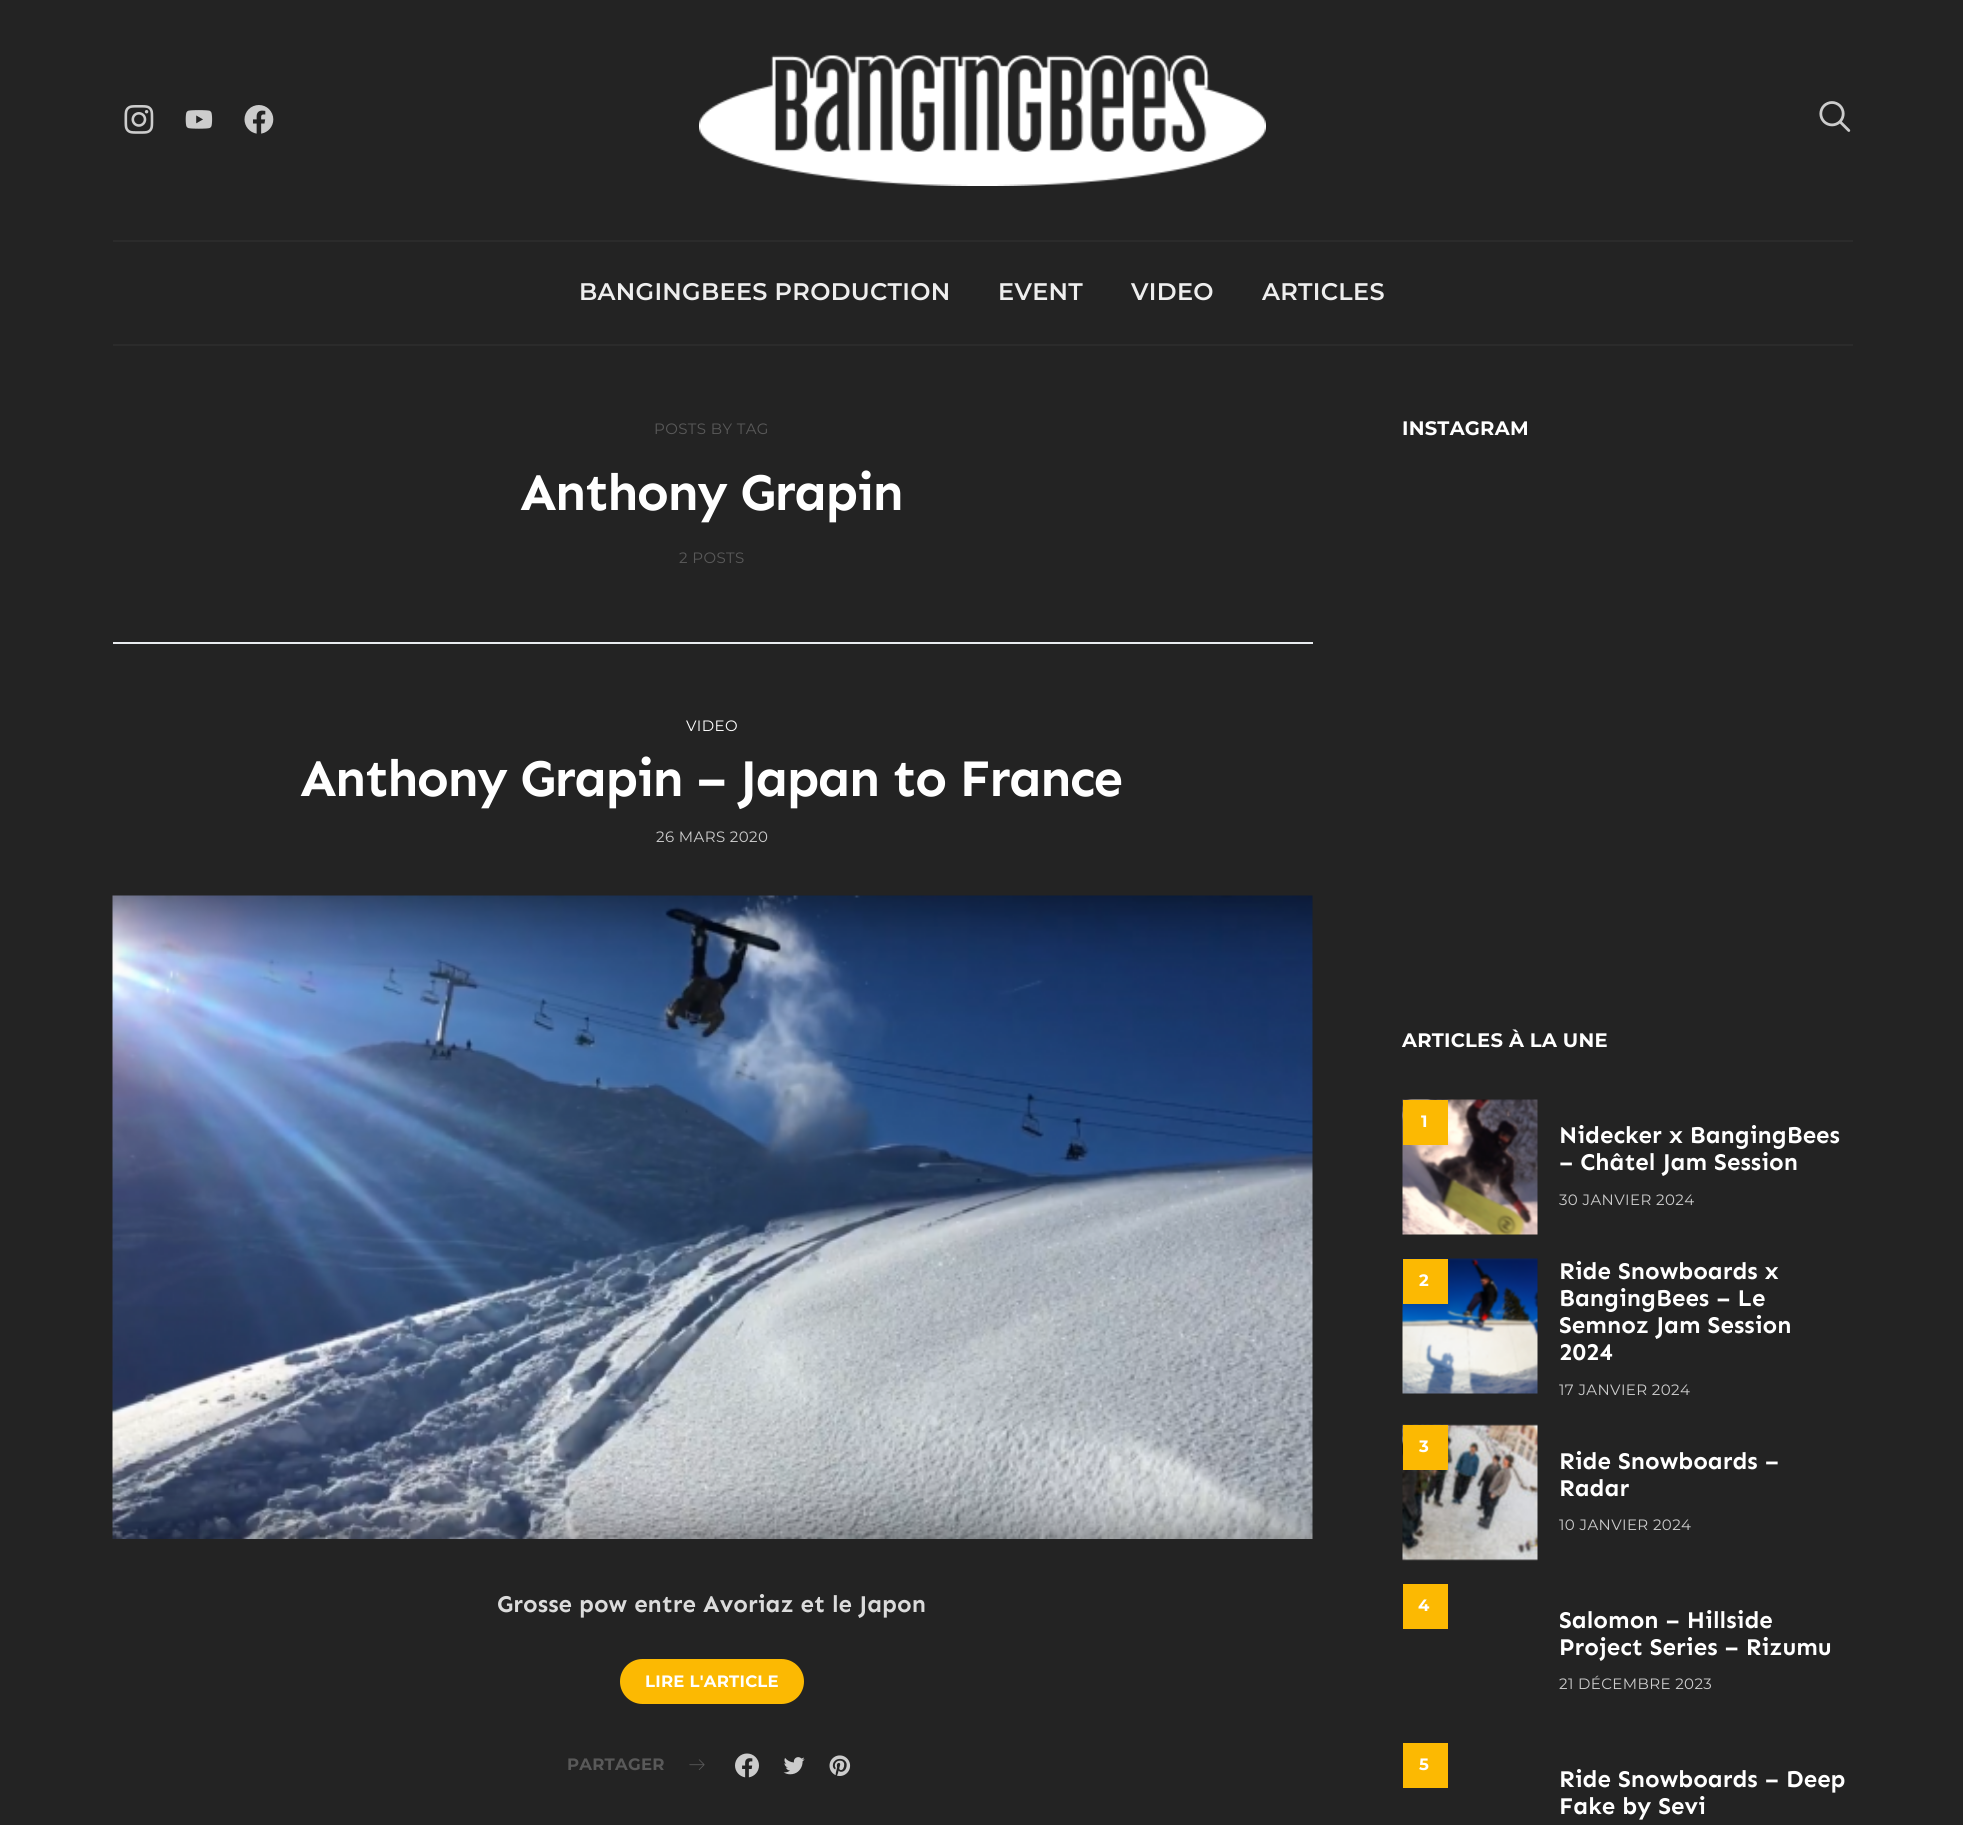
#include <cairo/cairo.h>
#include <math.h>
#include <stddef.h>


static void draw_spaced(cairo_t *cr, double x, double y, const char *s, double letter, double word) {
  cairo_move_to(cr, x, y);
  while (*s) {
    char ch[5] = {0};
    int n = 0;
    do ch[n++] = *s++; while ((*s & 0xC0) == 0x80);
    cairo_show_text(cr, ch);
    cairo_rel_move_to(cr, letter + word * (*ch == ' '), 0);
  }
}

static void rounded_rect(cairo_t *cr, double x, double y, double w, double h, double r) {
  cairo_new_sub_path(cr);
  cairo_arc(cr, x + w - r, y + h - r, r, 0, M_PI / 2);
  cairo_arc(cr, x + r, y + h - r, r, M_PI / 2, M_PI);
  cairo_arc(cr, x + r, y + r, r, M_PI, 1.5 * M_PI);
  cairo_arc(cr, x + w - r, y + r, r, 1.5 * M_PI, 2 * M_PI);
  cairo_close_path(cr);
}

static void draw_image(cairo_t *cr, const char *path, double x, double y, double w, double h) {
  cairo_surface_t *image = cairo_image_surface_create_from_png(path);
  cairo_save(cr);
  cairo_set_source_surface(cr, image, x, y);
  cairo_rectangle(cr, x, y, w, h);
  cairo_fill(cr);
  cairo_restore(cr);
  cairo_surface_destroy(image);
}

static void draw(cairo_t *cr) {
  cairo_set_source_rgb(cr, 35 / 255.0, 35 / 255.0, 35 / 255.0);
  cairo_paint(cr);
  draw_image(cr, "images/1.png", 124, 105, 30, 29);
  draw_image(cr, "images/2.png", 185, 110, 28, 19);
  draw_image(cr, "images/3.png", 244, 105, 30, 29);
  draw_image(cr, "images/4.png", 699, 55, 567, 131);
  draw_image(cr, "images/5.png", 1819, 101, 32, 31);
  cairo_set_source_rgb(cr, 43 / 255.0, 43 / 255.0, 43 / 255.0);
  cairo_rectangle(cr, 113, 240, 1740, 2);
  cairo_fill(cr);
  cairo_rectangle(cr, 113, 344, 1740, 2);
  cairo_fill(cr);
  cairo_set_source_rgb(cr, 233 / 255.0, 236 / 255.0, 239 / 255.0);
  cairo_rectangle(cr, 113, 642, 1200, 2);
  cairo_fill(cr);
  draw_image(cr, "images/6.png", 112, 895, 1201, 644);
  cairo_set_source_rgb(cr, 252 / 255.0, 185 / 255.0, 2 / 255.0);
  rounded_rect(cr, 620, 1659, 184, 45, 22.5);
  cairo_fill(cr);
  draw_image(cr, "images/7.png", 689, 1759, 16, 11);
  draw_image(cr, "images/8.png", 735, 1753, 24, 25);
  draw_image(cr, "images/9.png", 783, 1757, 22, 18);
  draw_image(cr, "images/10.png", 829, 1755, 22, 21);
  draw_image(cr, "images/11.png", 1402, 1099, 136, 136);
  cairo_rectangle(cr, 1403, 1100, 45, 45);
  cairo_fill(cr);
  draw_image(cr, "images/12.png", 1402, 1258, 136, 136);
  cairo_rectangle(cr, 1403, 1259, 45, 45);
  cairo_fill(cr);
  draw_image(cr, "images/13.png", 1402, 1424, 136, 137);
  cairo_rectangle(cr, 1403, 1425, 45, 45);
  cairo_fill(cr);
  cairo_rectangle(cr, 1403, 1584, 45, 45);
  cairo_fill(cr);
  cairo_rectangle(cr, 1403, 1743, 45, 45);
  cairo_fill(cr);
  cairo_select_font_face(cr, "Montserrat SemiBold", CAIRO_FONT_SLANT_NORMAL, CAIRO_FONT_WEIGHT_NORMAL);
  cairo_set_font_size(cr, 24);
  cairo_set_source_rgb(cr, 238 / 255.0, 238 / 255.0, 238 / 255.0);
  draw_spaced(cr, 579, 300, "BANGINGBEES PRODUCTION", 0.3, 0);
  draw_spaced(cr, 998, 300, "EVENT", 0.3, 0);
  draw_spaced(cr, 1131, 300, "VIDEO", 0.3, 0);
  draw_spaced(cr, 1262, 300, "ARTICLES", 0.3, 0);
  cairo_select_font_face(cr, "Montserrat", CAIRO_FONT_SLANT_NORMAL, CAIRO_FONT_WEIGHT_NORMAL);
  cairo_set_font_size(cr, 15);
  cairo_set_source_rgb(cr, 89 / 255.0, 89 / 255.0, 89 / 255.0);
  draw_spaced(cr, 654, 434, "POSTS BY TAG", 0.4, 0);
  cairo_select_font_face(cr, "Sen", CAIRO_FONT_SLANT_NORMAL, CAIRO_FONT_WEIGHT_BOLD);
  cairo_set_font_size(cr, 52.75);
  cairo_set_source_rgb(cr, 1, 1, 1);
  draw_spaced(cr, 520, 510, "Anthony Grapin", -1.6, 0);
  cairo_select_font_face(cr, "Montserrat", CAIRO_FONT_SLANT_NORMAL, CAIRO_FONT_WEIGHT_NORMAL);
  cairo_set_font_size(cr, 15);
  cairo_set_source_rgb(cr, 89 / 255.0, 89 / 255.0, 89 / 255.0);
  draw_spaced(cr, 679, 563, "2 POSTS", 0.4, 0);
  cairo_set_source_rgb(cr, 1, 1, 1);
  draw_spaced(cr, 686, 731, "VIDEO", 0.4, 0);
  cairo_select_font_face(cr, "Sen", CAIRO_FONT_SLANT_NORMAL, CAIRO_FONT_WEIGHT_BOLD);
  cairo_set_font_size(cr, 52.75);
  draw_spaced(cr, 300, 796, "Anthony Grapin – Japan to France", -1.6, 0);
  cairo_select_font_face(cr, "Montserrat", CAIRO_FONT_SLANT_NORMAL, CAIRO_FONT_WEIGHT_NORMAL);
  cairo_set_font_size(cr, 15);
  cairo_set_source_rgb(cr, 204 / 255.0, 204 / 255.0, 204 / 255.0);
  draw_spaced(cr, 656, 842, "26 MARS 2020", 0.4, 0);
  cairo_select_font_face(cr, "Sen", CAIRO_FONT_SLANT_NORMAL, CAIRO_FONT_WEIGHT_BOLD);
  cairo_set_font_size(cr, 24);
  cairo_set_source_rgb(cr, 219 / 255.0, 219 / 255.0, 219 / 255.0);
  cairo_move_to(cr, 497, 1612);
  cairo_show_text(cr, "Grosse pow entre Avoriaz et le Japon");
  cairo_select_font_face(cr, "Montserrat", CAIRO_FONT_SLANT_NORMAL, CAIRO_FONT_WEIGHT_BOLD);
  cairo_set_font_size(cr, 16.5);
  cairo_set_source_rgb(cr, 1, 1, 1);
  draw_spaced(cr, 645, 1687, "LIRE L'ARTICLE", 0.25, 0);
  cairo_set_source_rgb(cr, 89 / 255.0, 89 / 255.0, 89 / 255.0);
  draw_spaced(cr, 567, 1770, "PARTAGER", 0.25, 0);
  cairo_set_font_size(cr, 19.5);
  cairo_set_source_rgb(cr, 1, 1, 1);
  draw_spaced(cr, 1402, 435, "INSTAGRAM", 0.25, 0);
  draw_spaced(cr, 1402, 1047, "ARTICLES À LA UNE", 0.25, 0);
  cairo_set_font_size(cr, 16.5);
  draw_spaced(cr, 1421, 1127, "1", 0.25, 0);
  cairo_select_font_face(cr, "Sen", CAIRO_FONT_SLANT_NORMAL, CAIRO_FONT_WEIGHT_BOLD);
  cairo_set_font_size(cr, 24);
  cairo_move_to(cr, 1559, 1143);
  cairo_show_text(cr, "Nidecker x BangingBees");
  cairo_move_to(cr, 1559, 1170);
  cairo_show_text(cr, "– Châtel Jam Session");
  cairo_select_font_face(cr, "Montserrat", CAIRO_FONT_SLANT_NORMAL, CAIRO_FONT_WEIGHT_NORMAL);
  cairo_set_font_size(cr, 15);
  cairo_set_source_rgb(cr, 204 / 255.0, 204 / 255.0, 204 / 255.0);
  draw_spaced(cr, 1559, 1205, "30 JANVIER 2024", 0.4, 0);
  cairo_select_font_face(cr, "Montserrat", CAIRO_FONT_SLANT_NORMAL, CAIRO_FONT_WEIGHT_BOLD);
  cairo_set_font_size(cr, 16.5);
  cairo_set_source_rgb(cr, 1, 1, 1);
  draw_spaced(cr, 1419, 1286, "2", 0.25, 0);
  cairo_select_font_face(cr, "Sen", CAIRO_FONT_SLANT_NORMAL, CAIRO_FONT_WEIGHT_BOLD);
  cairo_set_font_size(cr, 24);
  cairo_move_to(cr, 1559, 1279);
  cairo_show_text(cr, "Ride Snowboards x");
  cairo_move_to(cr, 1559, 1306);
  cairo_show_text(cr, "BangingBees – Le");
  cairo_move_to(cr, 1559, 1333);
  cairo_show_text(cr, "Semnoz Jam Session");
  cairo_move_to(cr, 1559, 1360);
  cairo_show_text(cr, "2024");
  cairo_select_font_face(cr, "Montserrat", CAIRO_FONT_SLANT_NORMAL, CAIRO_FONT_WEIGHT_NORMAL);
  cairo_set_font_size(cr, 15);
  cairo_set_source_rgb(cr, 204 / 255.0, 204 / 255.0, 204 / 255.0);
  draw_spaced(cr, 1559, 1395, "17 JANVIER 2024", 0.4, 0);
  cairo_select_font_face(cr, "Montserrat", CAIRO_FONT_SLANT_NORMAL, CAIRO_FONT_WEIGHT_BOLD);
  cairo_set_font_size(cr, 16.5);
  cairo_set_source_rgb(cr, 1, 1, 1);
  draw_spaced(cr, 1419, 1452, "3", 0.25, 0);
  cairo_select_font_face(cr, "Sen", CAIRO_FONT_SLANT_NORMAL, CAIRO_FONT_WEIGHT_BOLD);
  cairo_set_font_size(cr, 24);
  cairo_move_to(cr, 1559, 1469);
  cairo_show_text(cr, "Ride Snowboards –");
  cairo_move_to(cr, 1559, 1496);
  cairo_show_text(cr, "Radar");
  cairo_select_font_face(cr, "Montserrat", CAIRO_FONT_SLANT_NORMAL, CAIRO_FONT_WEIGHT_NORMAL);
  cairo_set_font_size(cr, 15);
  cairo_set_source_rgb(cr, 204 / 255.0, 204 / 255.0, 204 / 255.0);
  draw_spaced(cr, 1559, 1530, "10 JANVIER 2024", 0.4, 0);
  cairo_select_font_face(cr, "Montserrat", CAIRO_FONT_SLANT_NORMAL, CAIRO_FONT_WEIGHT_BOLD);
  cairo_set_font_size(cr, 16.5);
  cairo_set_source_rgb(cr, 1, 1, 1);
  draw_spaced(cr, 1418, 1611, "4", 0.25, 0);
  cairo_select_font_face(cr, "Sen", CAIRO_FONT_SLANT_NORMAL, CAIRO_FONT_WEIGHT_BOLD);
  cairo_set_font_size(cr, 24);
  cairo_move_to(cr, 1559, 1628);
  cairo_show_text(cr, "Salomon – Hillside");
  cairo_move_to(cr, 1559, 1655);
  cairo_show_text(cr, "Project Series – Rizumu");
  cairo_select_font_face(cr, "Montserrat", CAIRO_FONT_SLANT_NORMAL, CAIRO_FONT_WEIGHT_NORMAL);
  cairo_set_font_size(cr, 15);
  cairo_set_source_rgb(cr, 204 / 255.0, 204 / 255.0, 204 / 255.0);
  draw_spaced(cr, 1559, 1689, "21 DÉCEMBRE 2023", 0.4, 0);
  cairo_select_font_face(cr, "Montserrat", CAIRO_FONT_SLANT_NORMAL, CAIRO_FONT_WEIGHT_BOLD);
  cairo_set_font_size(cr, 16.5);
  cairo_set_source_rgb(cr, 1, 1, 1);
  draw_spaced(cr, 1419, 1770, "5", 0.25, 0);
  cairo_select_font_face(cr, "Sen", CAIRO_FONT_SLANT_NORMAL, CAIRO_FONT_WEIGHT_BOLD);
  cairo_set_font_size(cr, 24);
  cairo_move_to(cr, 1559, 1787);
  cairo_show_text(cr, "Ride Snowboards – Deep");
  cairo_move_to(cr, 1559, 1814);
  cairo_show_text(cr, "Fake by Sevi");
}

int main(void) {
  cairo_surface_t *surface = cairo_image_surface_create(CAIRO_FORMAT_RGB24, 1963, 1825);
  cairo_t *cr = cairo_create(surface);
  cairo_font_options_t *options = cairo_font_options_create();
  cairo_font_options_set_hint_metrics(options, CAIRO_HINT_METRICS_OFF);
  cairo_font_options_set_hint_style(options, CAIRO_HINT_STYLE_NONE);
  cairo_set_font_options(cr, options);
  cairo_set_miter_limit(cr, 4);
  draw(cr);
  cairo_surface_write_to_png(surface, "out.png");
  cairo_font_options_destroy(options);
  cairo_destroy(cr);
  cairo_surface_destroy(surface);
  return 0;
}
